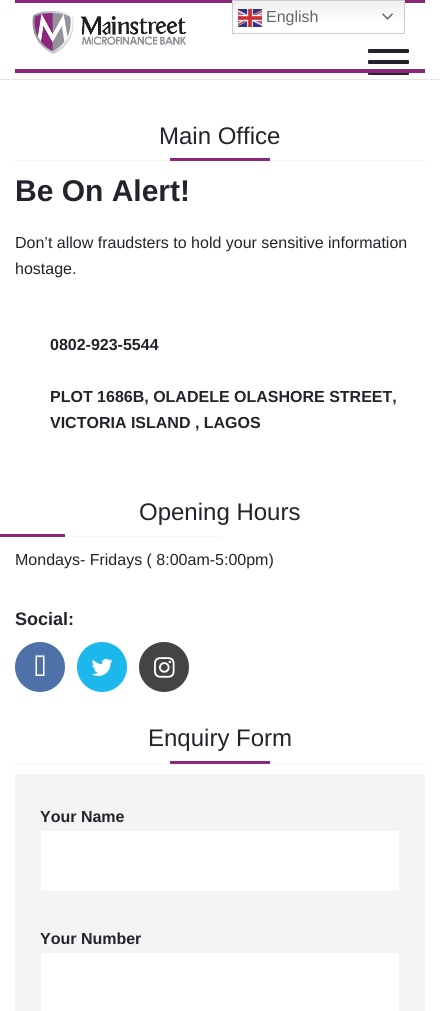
#include <cairo/cairo.h>
#include <math.h>
#include <stddef.h>


static void rounded_rect(cairo_t *cr, double x, double y, double w, double h, double r) {
  cairo_new_sub_path(cr);
  cairo_arc(cr, x + w - r, y + h - r, r, 0, M_PI / 2);
  cairo_arc(cr, x + r, y + h - r, r, M_PI / 2, M_PI);
  cairo_arc(cr, x + r, y + r, r, M_PI, 1.5 * M_PI);
  cairo_arc(cr, x + w - r, y + r, r, 1.5 * M_PI, 2 * M_PI);
  cairo_close_path(cr);
}

static void draw_image(cairo_t *cr, const char *path, double x, double y, double w, double h) {
  cairo_surface_t *image = cairo_image_surface_create_from_png(path);
  cairo_save(cr);
  cairo_set_source_surface(cr, image, x, y);
  cairo_rectangle(cr, x, y, w, h);
  cairo_fill(cr);
  cairo_restore(cr);
  cairo_surface_destroy(image);
}

static void draw(cairo_t *cr) {
  cairo_pattern_t *gradient;
  cairo_set_source_rgb(cr, 1, 1, 1);
  cairo_paint(cr);
  cairo_set_source_rgb(cr, 230 / 255.0, 230 / 255.0, 230 / 255.0);
  cairo_rectangle(cr, 0, 79, 440, 1);
  cairo_fill(cr);
  cairo_set_source_rgb(cr, 141 / 255.0, 38 / 255.0, 125 / 255.0);
  cairo_rectangle(cr, 15, 0, 410, 3);
  cairo_fill(cr);
  draw_image(cr, "images/1.png", 32, 11, 155, 43);
  cairo_set_source_rgb(cr, 36 / 255.0, 35 / 255.0, 43 / 255.0);
  rounded_rect(cr, 368, 49, 41, 4, 1);
  cairo_fill(cr);
  rounded_rect(cr, 368, 60, 41, 4, 1);
  cairo_fill(cr);
  rounded_rect(cr, 368, 71, 41, 4, 1);
  cairo_fill(cr);
  gradient = cairo_pattern_create_linear(319, 0, 319, 34);
  cairo_pattern_add_color_stop_rgba(gradient, 0, 239 / 255.0, 239 / 255.0, 239 / 255.0, 1);
  cairo_pattern_add_color_stop_rgba(gradient, 0.7, 1, 1, 1, 1);
  cairo_set_source(cr, gradient);
  cairo_pattern_destroy(gradient);
  cairo_rectangle(cr, 233, 1, 171, 19);
  cairo_fill(cr);
  cairo_rectangle(cr, 232.5, 0.5, 172, 33);
  cairo_set_source_rgb(cr, 204 / 255.0, 204 / 255.0, 204 / 255.0);
  cairo_set_line_width(cr, 1);
  cairo_stroke(cr);
  draw_image(cr, "images/2.png", 238, 9, 24, 18);
  draw_image(cr, "images/3.png", 382, 13, 11, 7);
  cairo_set_source_rgb(cr, 141 / 255.0, 38 / 255.0, 125 / 255.0);
  cairo_rectangle(cr, 15, 69, 410, 4);
  cairo_fill(cr);
  cairo_set_source_rgb(cr, 245 / 255.0, 245 / 255.0, 245 / 255.0);
  cairo_rectangle(cr, 15, 160, 410, 1);
  cairo_fill(cr);
  cairo_set_source_rgb(cr, 141 / 255.0, 38 / 255.0, 125 / 255.0);
  cairo_rectangle(cr, 170, 158, 100, 3);
  cairo_fill(cr);
  cairo_rectangle(cr, 0, 534, 65, 3);
  cairo_fill(cr);
  cairo_set_source_rgb(cr, 245 / 255.0, 245 / 255.0, 245 / 255.0);
  cairo_rectangle(cr, 65, 536, 155, 1);
  cairo_fill(cr);
  cairo_set_source_rgb(cr, 78 / 255.0, 113 / 255.0, 168 / 255.0);
  cairo_arc(cr, 40, 667, 25, 0, 2 * M_PI);
  cairo_fill(cr);
  draw_image(cr, "images/4.png", 35, 655, 10, 21);
  cairo_set_source_rgb(cr, 28 / 255.0, 183 / 255.0, 235 / 255.0);
  cairo_arc(cr, 102, 667, 25, 0, 2 * M_PI);
  cairo_fill(cr);
  draw_image(cr, "images/5.png", 91, 658, 22, 18);
  cairo_set_source_rgb(cr, 68 / 255.0, 68 / 255.0, 68 / 255.0);
  cairo_arc(cr, 164, 667, 25, 0, 2 * M_PI);
  cairo_fill(cr);
  draw_image(cr, "images/6.png", 154, 657, 21, 21);
  cairo_set_source_rgb(cr, 245 / 255.0, 245 / 255.0, 245 / 255.0);
  cairo_rectangle(cr, 15, 763, 410, 1);
  cairo_fill(cr);
  cairo_set_source_rgb(cr, 141 / 255.0, 38 / 255.0, 125 / 255.0);
  cairo_rectangle(cr, 170, 761, 100, 3);
  cairo_fill(cr);
  cairo_set_source_rgb(cr, 244 / 255.0, 244 / 255.0, 244 / 255.0);
  rounded_rect(cr, 15, 774, 410, 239, 2);
  cairo_fill(cr);
  cairo_set_source_rgb(cr, 1, 1, 1);
  rounded_rect(cr, 41, 831, 358, 60, 1);
  cairo_fill(cr);
  rounded_rect(cr, 41, 953, 358, 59, 1);
  cairo_fill(cr);
  cairo_select_font_face(cr, "Liberation Sans", CAIRO_FONT_SLANT_NORMAL, CAIRO_FONT_WEIGHT_NORMAL);
  cairo_set_font_size(cr, 16);
  cairo_set_source_rgb(cr, 102 / 255.0, 102 / 255.0, 102 / 255.0);
  cairo_move_to(cr, 266, 22);
  cairo_show_text(cr, "English");
  cairo_set_font_size(cr, 24);
  cairo_set_source_rgb(cr, 36 / 255.0, 35 / 255.0, 43 / 255.0);
  cairo_move_to(cr, 159, 144);
  cairo_show_text(cr, "Main Office");
  cairo_select_font_face(cr, "Liberation Sans", CAIRO_FONT_SLANT_NORMAL, CAIRO_FONT_WEIGHT_BOLD);
  cairo_set_font_size(cr, 30);
  cairo_move_to(cr, 15, 201);
  cairo_show_text(cr, "Be On Alert!");
  cairo_select_font_face(cr, "Liberation Sans", CAIRO_FONT_SLANT_NORMAL, CAIRO_FONT_WEIGHT_NORMAL);
  cairo_set_font_size(cr, 16);
  cairo_move_to(cr, 15, 248);
  cairo_show_text(cr, "Don’t allow fraudsters to hold your sensitive information");
  cairo_move_to(cr, 15, 274);
  cairo_show_text(cr, "hostage.");
  cairo_select_font_face(cr, "Liberation Sans", CAIRO_FONT_SLANT_NORMAL, CAIRO_FONT_WEIGHT_BOLD);
  cairo_move_to(cr, 50, 350);
  cairo_show_text(cr, "0802-923-5544");
  cairo_move_to(cr, 50, 402);
  cairo_show_text(cr, "PLOT 1686B, OLADELE OLASHORE STREET,");
  cairo_move_to(cr, 50, 428);
  cairo_show_text(cr, "VICTORIA ISLAND , LAGOS");
  cairo_select_font_face(cr, "Liberation Sans", CAIRO_FONT_SLANT_NORMAL, CAIRO_FONT_WEIGHT_NORMAL);
  cairo_set_font_size(cr, 24);
  cairo_move_to(cr, 139, 520);
  cairo_show_text(cr, "Opening Hours");
  cairo_set_font_size(cr, 16);
  cairo_move_to(cr, 15, 565);
  cairo_show_text(cr, "Mondays- Fridays ( 8:00am-5:00pm)");
  cairo_select_font_face(cr, "Liberation Sans", CAIRO_FONT_SLANT_NORMAL, CAIRO_FONT_WEIGHT_BOLD);
  cairo_set_font_size(cr, 18);
  cairo_move_to(cr, 15, 625);
  cairo_show_text(cr, "Social:");
  cairo_select_font_face(cr, "Liberation Sans", CAIRO_FONT_SLANT_NORMAL, CAIRO_FONT_WEIGHT_NORMAL);
  cairo_set_font_size(cr, 24);
  cairo_move_to(cr, 148, 746);
  cairo_show_text(cr, "Enquiry Form");
  cairo_select_font_face(cr, "Liberation Sans", CAIRO_FONT_SLANT_NORMAL, CAIRO_FONT_WEIGHT_BOLD);
  cairo_set_font_size(cr, 16);
  cairo_move_to(cr, 40, 822);
  cairo_show_text(cr, "Your Name");
  cairo_move_to(cr, 40, 944);
  cairo_show_text(cr, "Your Number");
}

int main(void) {
  cairo_surface_t *surface = cairo_image_surface_create(CAIRO_FORMAT_RGB24, 440, 1011);
  cairo_t *cr = cairo_create(surface);
  cairo_font_options_t *options = cairo_font_options_create();
  cairo_font_options_set_hint_metrics(options, CAIRO_HINT_METRICS_OFF);
  cairo_font_options_set_hint_style(options, CAIRO_HINT_STYLE_NONE);
  cairo_set_font_options(cr, options);
  cairo_set_miter_limit(cr, 4);
  draw(cr);
  cairo_surface_write_to_png(surface, "out.png");
  cairo_font_options_destroy(options);
  cairo_destroy(cr);
  cairo_surface_destroy(surface);
  return 0;
}
